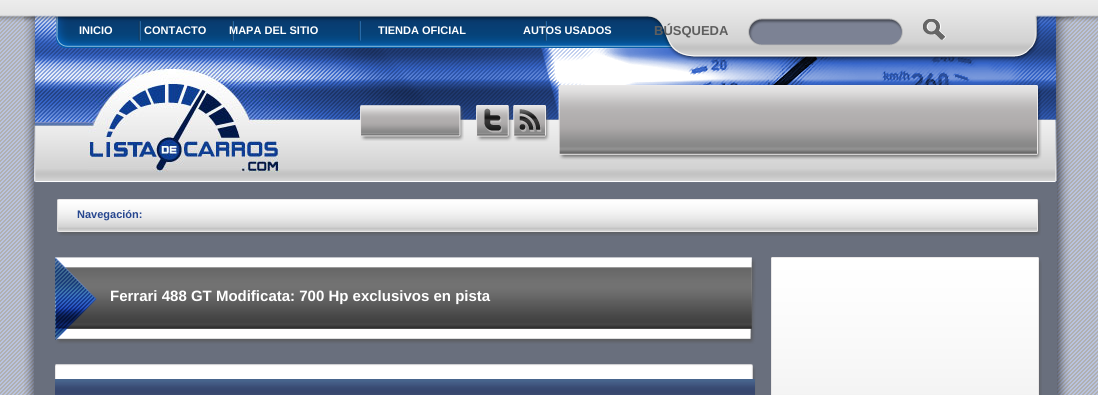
#include <cairo/cairo.h>
#include <math.h>
#include <stddef.h>


static void draw_image(cairo_t *cr, const char *path, double x, double y, double w, double h) {
  cairo_surface_t *image = cairo_image_surface_create_from_png(path);
  cairo_save(cr);
  cairo_set_source_surface(cr, image, x, y);
  cairo_rectangle(cr, x, y, w, h);
  cairo_fill(cr);
  cairo_restore(cr);
  cairo_surface_destroy(image);
}

static void draw(cairo_t *cr) {
  cairo_set_source_rgb(cr, 1, 1, 1);
  cairo_paint(cr);
  draw_image(cr, "images/1.png", 0, 15, 1098, 380);
  draw_image(cr, "images/2.png", 0, 0, 1098, 22);
  draw_image(cr, "images/3.png", 24, 15, 1050, 168);
  draw_image(cr, "images/4.png", 748, 18, 155, 28);
  draw_image(cr, "images/5.png", 923, 19, 24, 21);
  draw_image(cr, "images/6.png", 88, 69, 192, 103);
  draw_image(cr, "images/7.png", 360, 105, 104, 36);
  draw_image(cr, "images/8.png", 476, 105, 37, 37);
  draw_image(cr, "images/9.png", 513, 105, 37, 37);
  draw_image(cr, "images/10.png", 24, 183, 1046, 212);
  draw_image(cr, "images/11.png", 57, 199, 984, 37);
  draw_image(cr, "images/12.png", 55, 257, 701, 87);
  draw_image(cr, "images/13.png", 55, 364, 701, 10);
  draw_image(cr, "images/14.png", 55, 374, 701, 21);
  draw_image(cr, "images/15.png", 55, 379, 700, 16);
  draw_image(cr, "images/16.png", 771, 257, 271, 138);
  cairo_select_font_face(cr, "Liberation Sans", CAIRO_FONT_SLANT_NORMAL, CAIRO_FONT_WEIGHT_BOLD);
  cairo_set_font_size(cr, 11);
  cairo_set_source_rgb(cr, 1, 1, 1);
  cairo_move_to(cr, 79, 34);
  cairo_show_text(cr, "INICIO");
  cairo_move_to(cr, 144, 34);
  cairo_show_text(cr, "CONTACTO");
  cairo_move_to(cr, 229, 34);
  cairo_show_text(cr, "MAPA DEL SITIO");
  cairo_move_to(cr, 378, 34);
  cairo_show_text(cr, "TIENDA OFICIAL");
  cairo_move_to(cr, 523, 34);
  cairo_show_text(cr, "AUTOS USADOS");
  cairo_set_font_size(cr, 13);
  cairo_set_source_rgb(cr, 94 / 255.0, 94 / 255.0, 94 / 255.0);
  cairo_move_to(cr, 654, 35);
  cairo_show_text(cr, "BÚSQUEDA");
  cairo_set_font_size(cr, 11);
  cairo_set_source_rgb(cr, 38 / 255.0, 70 / 255.0, 143 / 255.0);
  cairo_move_to(cr, 77, 218);
  cairo_show_text(cr, "Navegación:");
  cairo_set_font_size(cr, 15);
  cairo_set_source_rgb(cr, 1, 1, 1);
  cairo_move_to(cr, 110, 301);
  cairo_show_text(cr, "Ferrari 488 GT Modificata: 700 Hp exclusivos en pista");
}

int main(void) {
  cairo_surface_t *surface = cairo_image_surface_create(CAIRO_FORMAT_RGB24, 1098, 395);
  cairo_t *cr = cairo_create(surface);
  cairo_font_options_t *options = cairo_font_options_create();
  cairo_font_options_set_hint_metrics(options, CAIRO_HINT_METRICS_OFF);
  cairo_font_options_set_hint_style(options, CAIRO_HINT_STYLE_NONE);
  cairo_set_font_options(cr, options);
  cairo_set_miter_limit(cr, 4);
  draw(cr);
  cairo_surface_write_to_png(surface, "out.png");
  cairo_font_options_destroy(options);
  cairo_destroy(cr);
  cairo_surface_destroy(surface);
  return 0;
}
